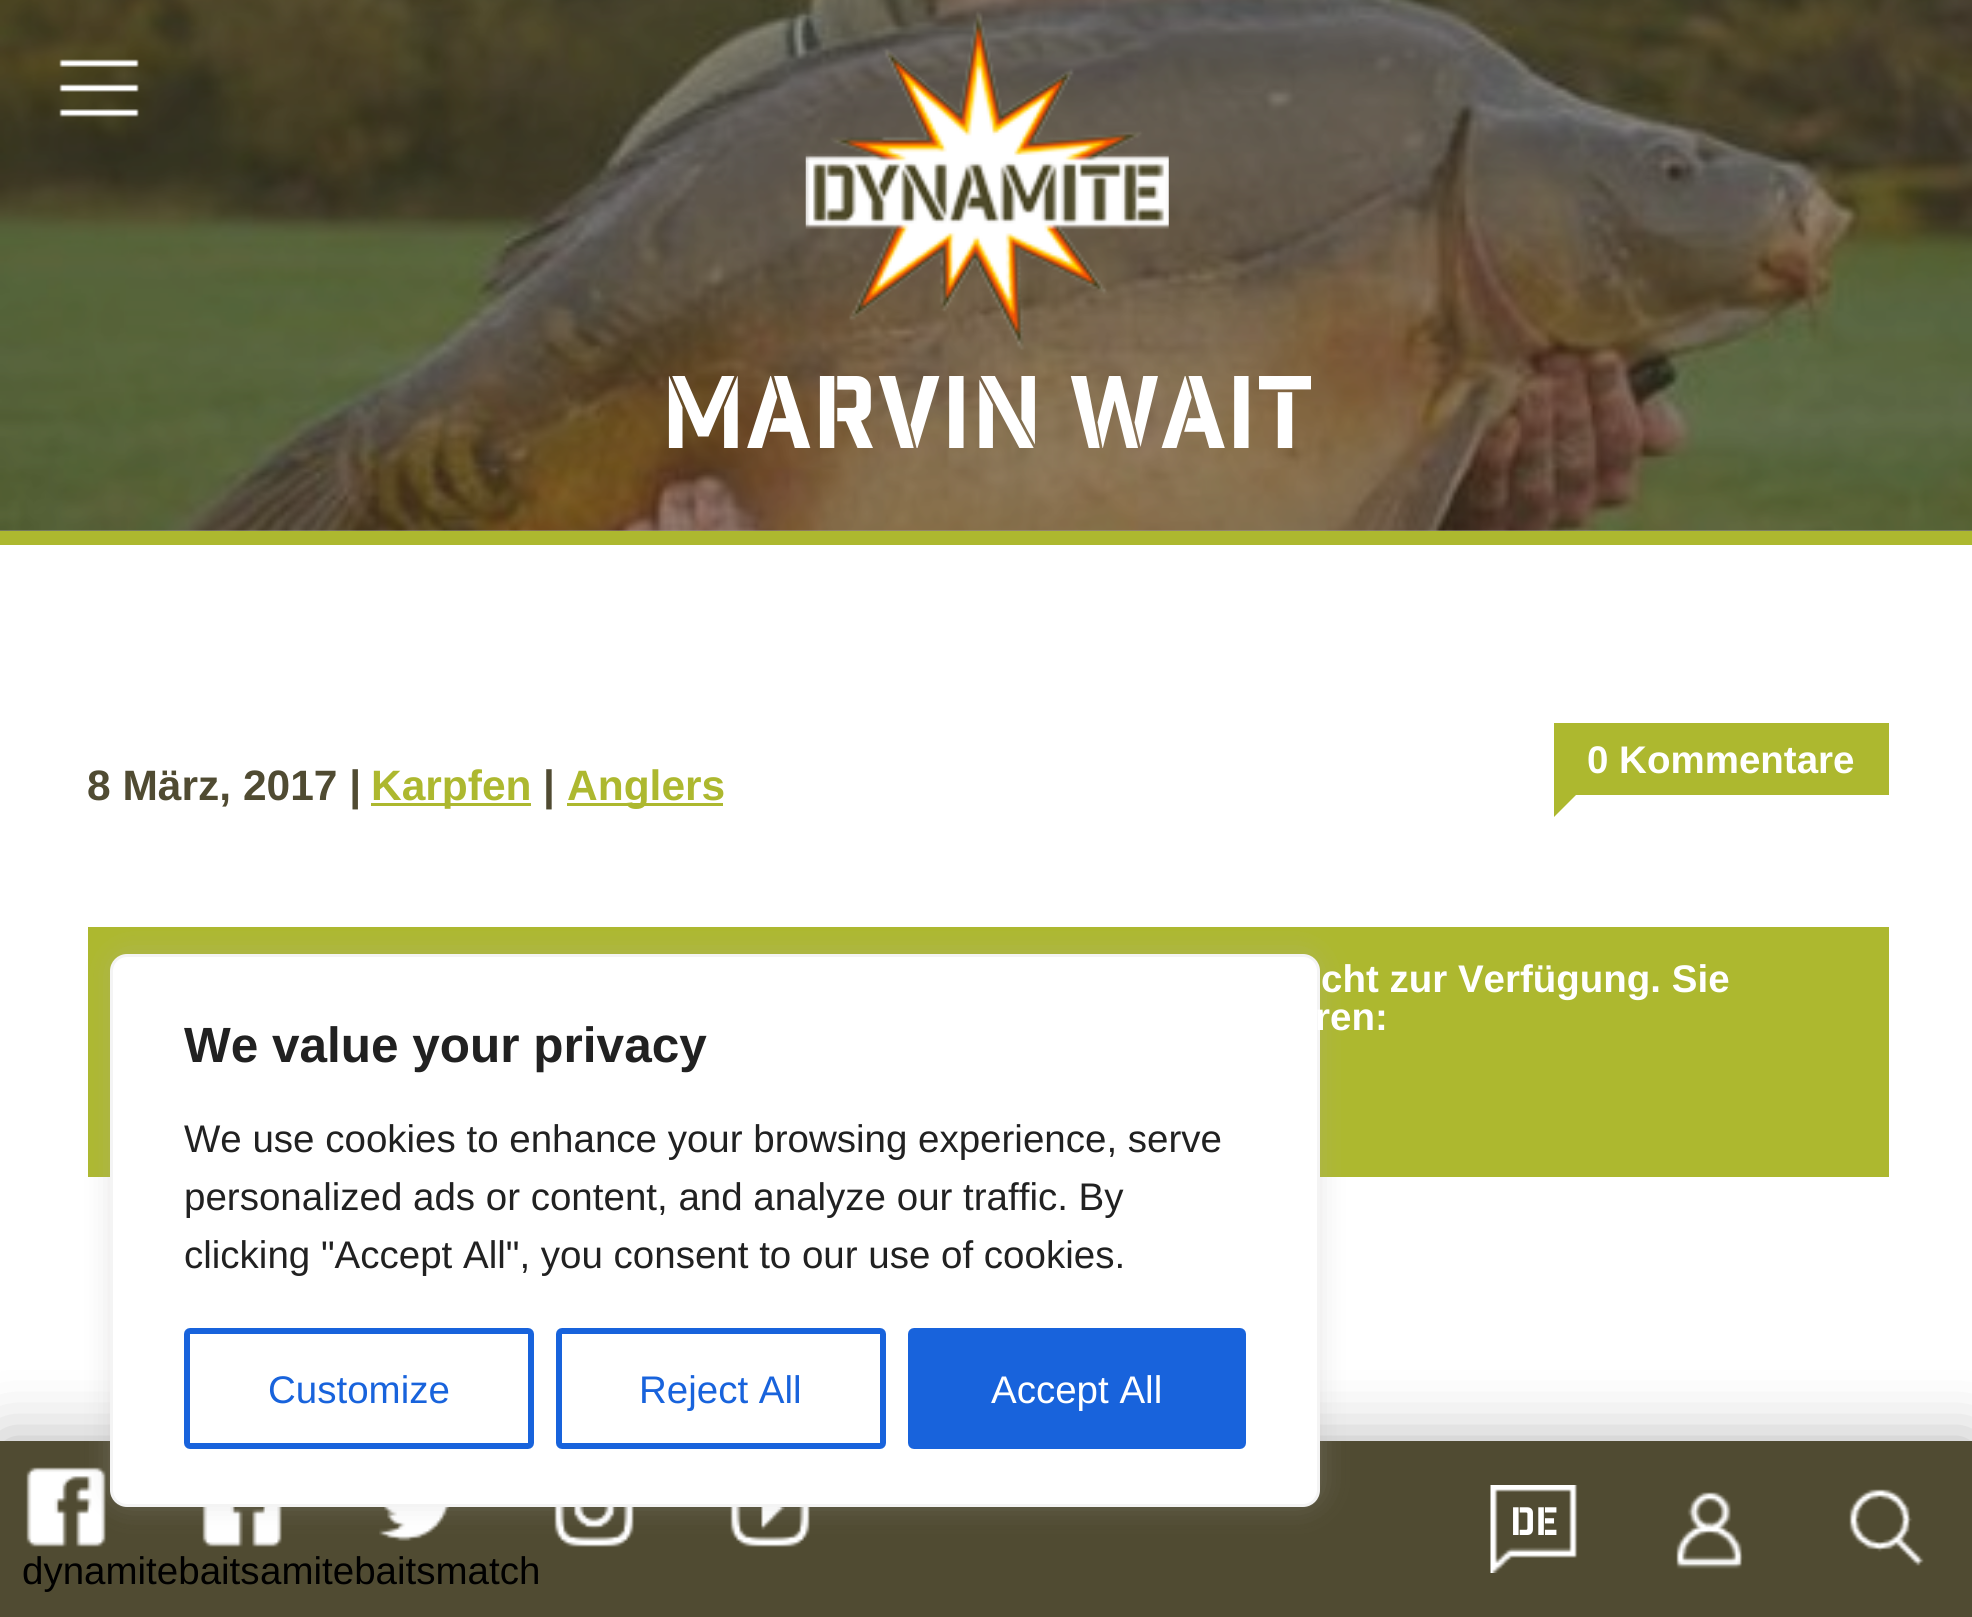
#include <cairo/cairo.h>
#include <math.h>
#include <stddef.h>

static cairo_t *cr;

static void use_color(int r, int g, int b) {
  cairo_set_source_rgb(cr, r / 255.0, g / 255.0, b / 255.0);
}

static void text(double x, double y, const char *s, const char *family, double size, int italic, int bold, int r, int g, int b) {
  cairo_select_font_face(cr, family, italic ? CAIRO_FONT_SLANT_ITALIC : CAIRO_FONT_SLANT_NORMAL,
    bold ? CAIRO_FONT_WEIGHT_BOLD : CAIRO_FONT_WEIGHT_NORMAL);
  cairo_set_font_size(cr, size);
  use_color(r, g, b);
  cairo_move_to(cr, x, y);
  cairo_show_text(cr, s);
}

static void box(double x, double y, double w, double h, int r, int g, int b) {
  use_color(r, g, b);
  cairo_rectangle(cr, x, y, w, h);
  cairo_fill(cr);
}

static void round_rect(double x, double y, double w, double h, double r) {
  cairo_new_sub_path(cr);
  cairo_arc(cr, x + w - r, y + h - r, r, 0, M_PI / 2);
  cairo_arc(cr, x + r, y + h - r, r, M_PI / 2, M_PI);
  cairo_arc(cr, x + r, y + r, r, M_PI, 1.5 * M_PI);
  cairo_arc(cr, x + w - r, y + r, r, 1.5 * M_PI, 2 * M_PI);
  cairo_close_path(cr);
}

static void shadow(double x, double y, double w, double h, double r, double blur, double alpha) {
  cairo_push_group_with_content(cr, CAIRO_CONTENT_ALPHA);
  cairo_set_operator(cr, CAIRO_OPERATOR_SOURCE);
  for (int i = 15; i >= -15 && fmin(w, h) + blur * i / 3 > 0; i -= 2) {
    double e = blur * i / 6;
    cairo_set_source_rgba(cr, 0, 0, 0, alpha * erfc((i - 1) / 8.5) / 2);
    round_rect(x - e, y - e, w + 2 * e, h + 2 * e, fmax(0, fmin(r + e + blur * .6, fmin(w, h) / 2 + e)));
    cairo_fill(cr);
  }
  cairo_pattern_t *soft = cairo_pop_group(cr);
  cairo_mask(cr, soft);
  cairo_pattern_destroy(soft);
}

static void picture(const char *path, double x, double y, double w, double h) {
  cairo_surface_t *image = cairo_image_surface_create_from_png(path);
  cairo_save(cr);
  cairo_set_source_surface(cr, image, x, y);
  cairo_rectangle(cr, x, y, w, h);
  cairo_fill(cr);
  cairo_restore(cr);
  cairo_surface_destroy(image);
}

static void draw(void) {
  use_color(255, 255, 255);
  cairo_paint(cr);
  box(0, 530, 1972, 1, 162, 160, 149);
  picture("img_03.png", 0, 0, 1972, 531);
  picture("img_01.png", 59, 59, 80, 58);
  picture("img_02.png", 805, 10, 364, 340);
  box(0, 531, 1972, 14, 173, 184, 47);
  box(1554, 723, 335, 72, 173, 184, 47);
  cairo_new_path(cr);
  cairo_move_to(cr, 1554, 817);
  cairo_line_to(cr, 1554, 773);
  cairo_line_to(cr, 1576, 795);
  cairo_close_path(cr);
  cairo_fill(cr);
  box(371, 803, 160, 3, 173, 184, 47);
  box(567, 803, 156, 3, 173, 184, 47);
  box(88, 927, 1801, 250, 173, 184, 47);
  use_color(0, 0, 0);
  shadow(0, 1441, 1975, 176, 0, 33, 0.3);
  box(0, 1441, 1972, 176, 80, 75, 50);
  picture("img_07.png", 379, 1507, 71, 34);
  picture("img_08.png", 554, 1507, 80, 40);
  picture("img_09.png", 730, 1507, 80, 40);
  picture("img_10.png", 26, 1467, 80, 80);
  picture("img_11.png", 202, 1507, 80, 40);
  use_color(172, 171, 171);
  shadow(110, 952, 1210, 552, 17, 14, 0.3);
  use_color(255, 255, 255);
  round_rect(111.5, 955.5, 1207, 550, 15.5);
  cairo_fill_preserve(cr);
  use_color(244, 244, 244);
  cairo_set_line_width(cr, 3);
  cairo_stroke(cr);
  round_rect(187, 1331, 344, 115, 3);
  use_color(24, 99, 220);
  cairo_set_line_width(cr, 6);
  cairo_stroke(cr);
  round_rect(559, 1331, 324, 115, 3);
  cairo_stroke(cr);
  round_rect(911, 1331, 332, 115, 3);
  cairo_fill_preserve(cr);
  cairo_stroke(cr);
  picture("img_04.png", 1490, 1485, 88, 88);
  picture("img_05.png", 1676, 1492, 68, 77);
  picture("img_06.png", 1849, 1489, 75, 77);
  text(661, 448, "Marvin Wait", "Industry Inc", 100, 0, 1, 255, 255, 255);
  text(1587, 773, "0 Kommentare", "Liberation Sans", 38.5, 0, 1, 255, 255, 255);
  text(87, 800, "8 März, 2017 |", "Liberation Sans", 42.5, 0, 1, 80, 75, 50);
  text(371, 800, "Karpfen", "Liberation Sans", 42.5, 0, 1, 173, 184, 47);
  text(543, 800, "|", "Liberation Sans", 42.5, 0, 1, 80, 75, 50);
  text(567, 800, "Anglers", "Liberation Sans", 42.5, 0, 1, 173, 184, 47);
  text(1321, 992, "cht zur Verfügung. Sie", "Liberation Sans", 38.5, 0, 1, 255, 255, 255);
  text(1315, 1030, "ren:", "Liberation Sans", 38.5, 0, 1, 255, 255, 255);
  text(184, 1062, "We value your privacy", "Liberation Sans", 49.5, 0, 1, 33, 33, 33);
  text(184, 1152, "We use cookies to enhance your browsing experience, serve", "Liberation Sans", 38.5, 0, 0, 33, 33, 33);
  text(184, 1210, "personalized ads or content, and analyze our traffic. By", "Liberation Sans", 38.5, 0, 0, 33, 33, 33);
  text(184, 1268, "clicking \"Accept All\", you consent to our use of cookies.", "Liberation Sans", 38.5, 0, 0, 33, 33, 33);
  text(268, 1403, "Customize", "Liberation Sans", 38.5, 0, 0, 24, 99, 220);
  text(639, 1403, "Reject All", "Liberation Sans", 38.5, 0, 0, 24, 99, 220);
  text(991, 1403, "Accept All", "Liberation Sans", 38.5, 0, 0, 255, 255, 255);
  text(1510, 1535, "DE", "Industry Inc", 38.5, 0, 1, 255, 255, 255);
  text(22, 1584, "dynamitebaits", "Liberation Sans", 38.5, 0, 0, 0, 0, 0);
  text(260, 1584, "amitebaitsmatch", "Liberation Sans", 38.5, 0, 0, 0, 0, 0);
}

int main(void) {
  cairo_surface_t *surface = cairo_image_surface_create(CAIRO_FORMAT_RGB24, 1972, 1617);
  cr = cairo_create(surface);
  cairo_font_options_t *options = cairo_font_options_create();
  cairo_font_options_set_hint_metrics(options, CAIRO_HINT_METRICS_OFF);
  cairo_font_options_set_hint_style(options, CAIRO_HINT_STYLE_NONE);
  cairo_set_font_options(cr, options);
  cairo_set_miter_limit(cr, 4);
  draw();
  cairo_surface_write_to_png(surface, "out.png");
  cairo_font_options_destroy(options);
  cairo_destroy(cr);
  cairo_surface_destroy(surface);
  return 0;
}
